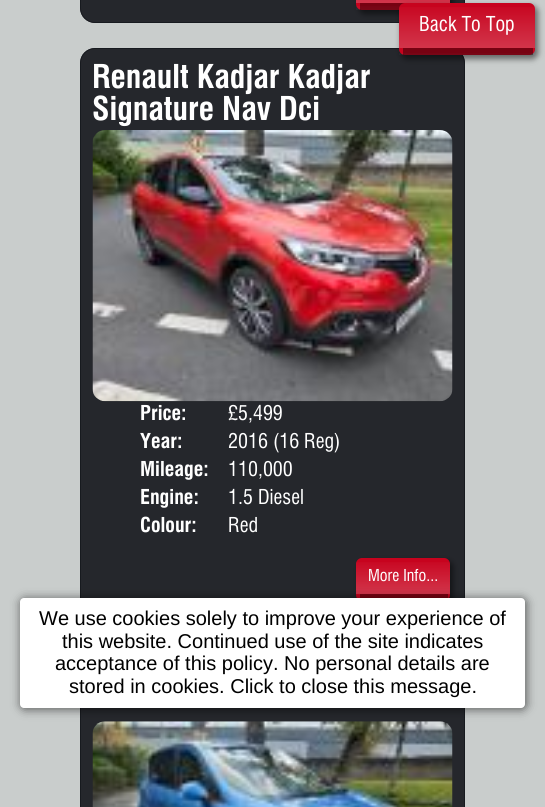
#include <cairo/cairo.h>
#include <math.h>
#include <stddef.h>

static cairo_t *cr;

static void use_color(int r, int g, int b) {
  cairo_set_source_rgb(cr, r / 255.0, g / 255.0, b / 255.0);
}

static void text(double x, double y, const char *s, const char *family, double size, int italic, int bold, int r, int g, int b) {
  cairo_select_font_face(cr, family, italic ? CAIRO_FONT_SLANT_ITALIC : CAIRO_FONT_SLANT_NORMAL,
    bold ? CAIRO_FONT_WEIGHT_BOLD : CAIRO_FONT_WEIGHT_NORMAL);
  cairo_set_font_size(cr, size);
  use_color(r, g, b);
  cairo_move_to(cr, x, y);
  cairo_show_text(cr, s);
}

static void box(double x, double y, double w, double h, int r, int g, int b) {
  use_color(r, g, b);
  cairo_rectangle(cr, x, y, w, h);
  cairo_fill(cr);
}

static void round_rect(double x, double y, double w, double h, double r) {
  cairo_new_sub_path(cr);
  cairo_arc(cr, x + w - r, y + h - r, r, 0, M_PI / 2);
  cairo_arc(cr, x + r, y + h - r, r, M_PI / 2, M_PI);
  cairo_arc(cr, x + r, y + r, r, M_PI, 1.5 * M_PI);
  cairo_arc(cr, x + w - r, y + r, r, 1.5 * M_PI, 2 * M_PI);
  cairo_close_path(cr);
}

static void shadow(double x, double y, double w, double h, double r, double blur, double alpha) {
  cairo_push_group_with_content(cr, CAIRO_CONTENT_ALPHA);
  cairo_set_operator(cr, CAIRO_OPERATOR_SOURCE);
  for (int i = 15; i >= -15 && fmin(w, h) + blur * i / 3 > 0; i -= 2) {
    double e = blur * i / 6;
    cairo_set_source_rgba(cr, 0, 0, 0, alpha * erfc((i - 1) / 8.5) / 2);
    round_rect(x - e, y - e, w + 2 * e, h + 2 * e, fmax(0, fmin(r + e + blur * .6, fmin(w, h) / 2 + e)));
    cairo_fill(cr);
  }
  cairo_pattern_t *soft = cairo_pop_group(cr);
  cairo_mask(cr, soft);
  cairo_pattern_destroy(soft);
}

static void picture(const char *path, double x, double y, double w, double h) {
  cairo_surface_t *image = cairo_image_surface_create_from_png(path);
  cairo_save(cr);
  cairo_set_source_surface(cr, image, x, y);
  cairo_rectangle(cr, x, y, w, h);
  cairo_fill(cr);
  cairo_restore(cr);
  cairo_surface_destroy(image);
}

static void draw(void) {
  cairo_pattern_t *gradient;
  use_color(201, 205, 204);
  cairo_paint(cr);
  use_color(37, 39, 44);
  round_rect(80, -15, 385, 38, 15);
  cairo_fill(cr);
  round_rect(80.5, -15.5, 384, 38, 14.5);
  cairo_set_source_rgba(cr, 0.082, 0.09, 0.11, 0.8);
  cairo_set_line_width(cr, 1);
  cairo_stroke(cr);
  use_color(0, 0, 0);
  shadow(359, -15, 94, 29, 6, 3, 0.5);
  use_color(199, 3, 30);
  round_rect(356, -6, 94, 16, 6);
  cairo_fill(cr);
  gradient = cairo_pattern_create_linear(403, 2.5, 403, -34);
  cairo_pattern_add_color_stop_rgba(gradient, 0, 0.824, 0.208, 0.294, 1);
  cairo_pattern_add_color_stop_rgba(gradient, 1, 0.78, 0.012, 0.118, 1);
  cairo_set_source(cr, gradient);
  cairo_pattern_destroy(gradient);
  cairo_rectangle(cr, 356, 0, 94, 3);
  cairo_fill(cr);
  gradient = cairo_pattern_create_linear(403, 39, 403, 2.5);
  cairo_pattern_add_color_stop_rgba(gradient, 0, 1, 1, 1, 0.2);
  cairo_pattern_add_color_stop_rgba(gradient, 1, 1, 1, 1, 0);
  cairo_set_source(cr, gradient);
  cairo_pattern_destroy(gradient);
  cairo_rectangle(cr, 356, 6, 44, 4);
  cairo_fill(cr);
  cairo_set_source_rgba(cr, 0, 0, 0, 0.4);
  cairo_rectangle(cr, 360, 3, 45, 7);
  cairo_fill(cr);
  use_color(37, 39, 44);
  round_rect(80, 48, 385, 566, 15);
  cairo_fill(cr);
  round_rect(80.5, 48.5, 384, 565, 14.5);
  cairo_set_source_rgba(cr, 0.082, 0.09, 0.11, 0.8);
  cairo_stroke(cr);
  use_color(0, 0, 0);
  shadow(401, 6, 137, 53, 6, 3, 0.5);
  use_color(199, 3, 30);
  round_rect(399, 3, 136, 52, 6);
  cairo_fill(cr);
  gradient = cairo_pattern_create_linear(467, 48, 467, 2.5);
  cairo_pattern_add_color_stop_rgba(gradient, 0, 1, 1, 1, 0.2);
  cairo_pattern_add_color_stop_rgba(gradient, 1, 1, 1, 1, 0);
  cairo_set_source(cr, gradient);
  cairo_pattern_destroy(gradient);
  cairo_rectangle(cr, 399, 7, 136, 41);
  cairo_fill(cr);
  gradient = cairo_pattern_create_linear(467, 93, 467, 48);
  cairo_pattern_add_color_stop_rgba(gradient, 0, 1, 1, 1, 0.2);
  cairo_pattern_add_color_stop_rgba(gradient, 1, 1, 1, 1, 0);
  cairo_set_source(cr, gradient);
  cairo_pattern_destroy(gradient);
  cairo_rectangle(cr, 399, 53, 136, 2);
  cairo_fill(cr);
  cairo_set_source_rgba(cr, 0, 0, 0, 0.4);
  cairo_rectangle(cr, 403, 48, 130, 7);
  cairo_fill(cr);
  picture("img_01.png", 92, 130, 361, 272);
  use_color(0, 0, 0);
  shadow(359, 561, 94, 44, 6, 3, 0.5);
  use_color(199, 3, 30);
  round_rect(356, 558, 94, 43, 6);
  cairo_fill(cr);
  gradient = cairo_pattern_create_linear(403, 594, 403, 558);
  cairo_pattern_add_color_stop_rgba(gradient, 0, 1, 1, 1, 0.2);
  cairo_pattern_add_color_stop_rgba(gradient, 1, 1, 1, 1, 0);
  cairo_set_source(cr, gradient);
  cairo_pattern_destroy(gradient);
  cairo_rectangle(cr, 356, 562, 94, 32);
  cairo_fill(cr);
  cairo_set_source_rgba(cr, 0, 0, 0, 0.4);
  cairo_rectangle(cr, 360, 594, 88, 4);
  cairo_fill(cr);
  box(80, 708, 385, 99, 37, 39, 44);
  cairo_rectangle(cr, 80.5, 639.5, 384, 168);
  cairo_set_source_rgba(cr, 0.082, 0.09, 0.11, 0.8);
  cairo_stroke(cr);
  picture("img_02.png", 92, 721, 361, 86);
  use_color(0, 0, 0);
  shadow(21, 599, 505, 110, 4, 5, 0.6);
  use_color(255, 255, 255);
  round_rect(20, 598, 505, 110, 4);
  cairo_fill(cr);
  text(419, 31, "Back To Top", "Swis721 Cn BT", 20, 0, 0, 255, 255, 255);
  text(92, 88, "Renault Kadjar Kadjar", "Swis721 Cn BT", 32, 0, 1, 255, 255, 255);
  text(92, 120, "Signature Nav Dci", "Swis721 Cn BT", 32, 0, 1, 255, 255, 255);
  text(140, 420, "Price:", "Swis721 Cn BT", 20, 0, 1, 255, 255, 255);
  text(228, 420, "£5,499", "Swis721 Cn BT", 20, 0, 0, 255, 255, 255);
  text(140, 448, "Year:", "Swis721 Cn BT", 20, 0, 1, 255, 255, 255);
  text(228, 448, "2016 (16 Reg)", "Swis721 Cn BT", 20, 0, 0, 255, 255, 255);
  text(140, 476, "Mileage:", "Swis721 Cn BT", 20, 0, 1, 255, 255, 255);
  text(228, 476, "110,000", "Swis721 Cn BT", 20, 0, 0, 255, 255, 255);
  text(140, 504, "Engine:", "Swis721 Cn BT", 20, 0, 1, 255, 255, 255);
  text(228, 504, "1.5 Diesel", "Swis721 Cn BT", 20, 0, 0, 255, 255, 255);
  text(140, 532, "Colour:", "Swis721 Cn BT", 20, 0, 1, 255, 255, 255);
  text(228, 532, "Red", "Swis721 Cn BT", 20, 0, 0, 255, 255, 255);
  text(368, 581, "More Info...", "Swis721 Cn BT", 16, 0, 0, 255, 255, 255);
  text(39, 625, "We use cookies solely to improve your experience of", "Liberation Sans", 20, 0, 0, 0, 0, 0);
  text(62, 648, "this website. Continued use of the site indicates", "Liberation Sans", 20, 0, 0, 0, 0, 0);
  text(55, 670, "acceptance of this policy. No personal details are", "Liberation Sans", 20, 0, 0, 0, 0, 0);
  text(69, 693, "stored in cookies. Click to close this message.", "Liberation Sans", 20, 0, 0, 0, 0, 0);
}

int main(void) {
  cairo_surface_t *surface = cairo_image_surface_create(CAIRO_FORMAT_RGB24, 545, 807);
  cr = cairo_create(surface);
  cairo_font_options_t *options = cairo_font_options_create();
  cairo_font_options_set_hint_metrics(options, CAIRO_HINT_METRICS_OFF);
  cairo_font_options_set_hint_style(options, CAIRO_HINT_STYLE_NONE);
  cairo_set_font_options(cr, options);
  cairo_set_miter_limit(cr, 4);
  draw();
  cairo_surface_write_to_png(surface, "out.png");
  cairo_font_options_destroy(options);
  cairo_destroy(cr);
  cairo_surface_destroy(surface);
  return 0;
}
